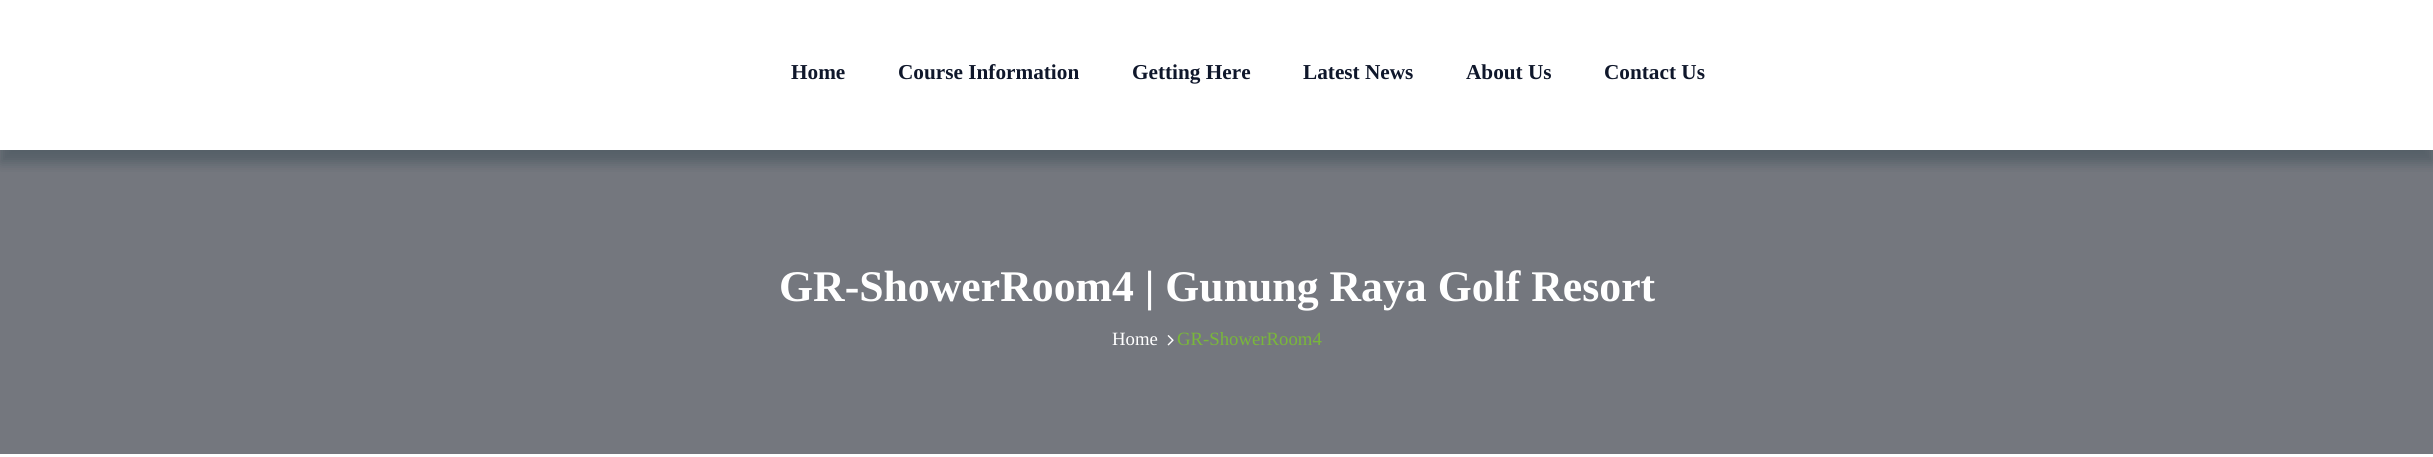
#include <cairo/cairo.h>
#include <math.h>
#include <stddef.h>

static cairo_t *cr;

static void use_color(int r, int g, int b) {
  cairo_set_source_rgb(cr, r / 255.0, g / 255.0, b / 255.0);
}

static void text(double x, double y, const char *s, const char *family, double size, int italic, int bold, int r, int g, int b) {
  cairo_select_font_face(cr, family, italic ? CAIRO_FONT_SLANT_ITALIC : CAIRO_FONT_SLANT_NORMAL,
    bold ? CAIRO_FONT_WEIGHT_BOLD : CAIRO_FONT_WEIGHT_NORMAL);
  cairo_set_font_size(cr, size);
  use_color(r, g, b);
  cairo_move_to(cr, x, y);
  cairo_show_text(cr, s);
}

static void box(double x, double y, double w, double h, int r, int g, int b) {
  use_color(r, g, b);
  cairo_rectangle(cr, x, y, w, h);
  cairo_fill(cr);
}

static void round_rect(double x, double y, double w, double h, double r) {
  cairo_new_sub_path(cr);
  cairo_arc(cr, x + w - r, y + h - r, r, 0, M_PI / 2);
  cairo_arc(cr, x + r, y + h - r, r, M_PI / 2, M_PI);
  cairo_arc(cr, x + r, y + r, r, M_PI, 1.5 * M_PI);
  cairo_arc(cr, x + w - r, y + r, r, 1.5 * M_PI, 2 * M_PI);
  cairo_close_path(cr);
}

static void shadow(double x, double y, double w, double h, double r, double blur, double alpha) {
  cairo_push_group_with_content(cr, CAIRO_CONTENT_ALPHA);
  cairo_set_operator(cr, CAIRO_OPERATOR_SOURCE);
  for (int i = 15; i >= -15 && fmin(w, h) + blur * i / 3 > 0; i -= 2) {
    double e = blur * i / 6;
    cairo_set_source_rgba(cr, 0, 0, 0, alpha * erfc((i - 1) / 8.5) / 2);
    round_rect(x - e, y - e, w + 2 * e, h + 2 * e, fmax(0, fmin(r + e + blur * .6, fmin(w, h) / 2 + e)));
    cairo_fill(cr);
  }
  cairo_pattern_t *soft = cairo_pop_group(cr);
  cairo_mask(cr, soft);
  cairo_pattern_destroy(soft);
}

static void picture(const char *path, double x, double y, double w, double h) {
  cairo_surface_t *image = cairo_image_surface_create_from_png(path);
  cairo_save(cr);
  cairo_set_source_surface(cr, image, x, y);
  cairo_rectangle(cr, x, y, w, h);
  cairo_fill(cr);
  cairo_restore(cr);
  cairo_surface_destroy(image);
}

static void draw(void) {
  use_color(255, 255, 255);
  cairo_paint(cr);
  box(0, 150, 2433, 304, 116, 119, 126);
  cairo_save(cr);
  cairo_rectangle(cr, 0, 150, 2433, 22);
  cairo_clip(cr);
  use_color(13, 41, 51);
  shadow(0, 13, 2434, 150, 0, 6, 0.3);
  cairo_restore(cr);
  picture("img_01.png", 1167, 335, 7, 11);
  text(791, 79, "Home", "Liberation Serif", 21.25, 0, 1, 15, 23, 43);
  text(898, 79, "Course Information", "Liberation Serif", 21.25, 0, 1, 15, 23, 43);
  text(1132, 79, "Getting Here", "Liberation Serif", 21.25, 0, 1, 15, 23, 43);
  text(1303, 79, "Latest News", "Liberation Serif", 21.25, 0, 1, 15, 23, 43);
  text(1466, 79, "About Us", "Liberation Serif", 21.25, 0, 1, 15, 23, 43);
  text(1604, 79, "Contact Us", "Liberation Serif", 21.25, 0, 1, 15, 23, 43);
  text(779, 301, "GR-ShowerRoom4 | Gunung Raya Golf Resort", "Liberation Serif", 43.75, 0, 1, 255, 255, 255);
  text(1112, 345, "Home", "Liberation Serif", 18.75, 0, 0, 255, 255, 255);
  text(1177, 345, "GR-ShowerRoom4", "Liberation Serif", 18.75, 0, 0, 121, 183, 58);
}

int main(void) {
  cairo_surface_t *surface = cairo_image_surface_create(CAIRO_FORMAT_RGB24, 2433, 457);
  cr = cairo_create(surface);
  cairo_font_options_t *options = cairo_font_options_create();
  cairo_font_options_set_hint_metrics(options, CAIRO_HINT_METRICS_OFF);
  cairo_font_options_set_hint_style(options, CAIRO_HINT_STYLE_NONE);
  cairo_set_font_options(cr, options);
  cairo_set_miter_limit(cr, 4);
  draw();
  cairo_surface_write_to_png(surface, "out.png");
  cairo_font_options_destroy(options);
  cairo_destroy(cr);
  cairo_surface_destroy(surface);
  return 0;
}
